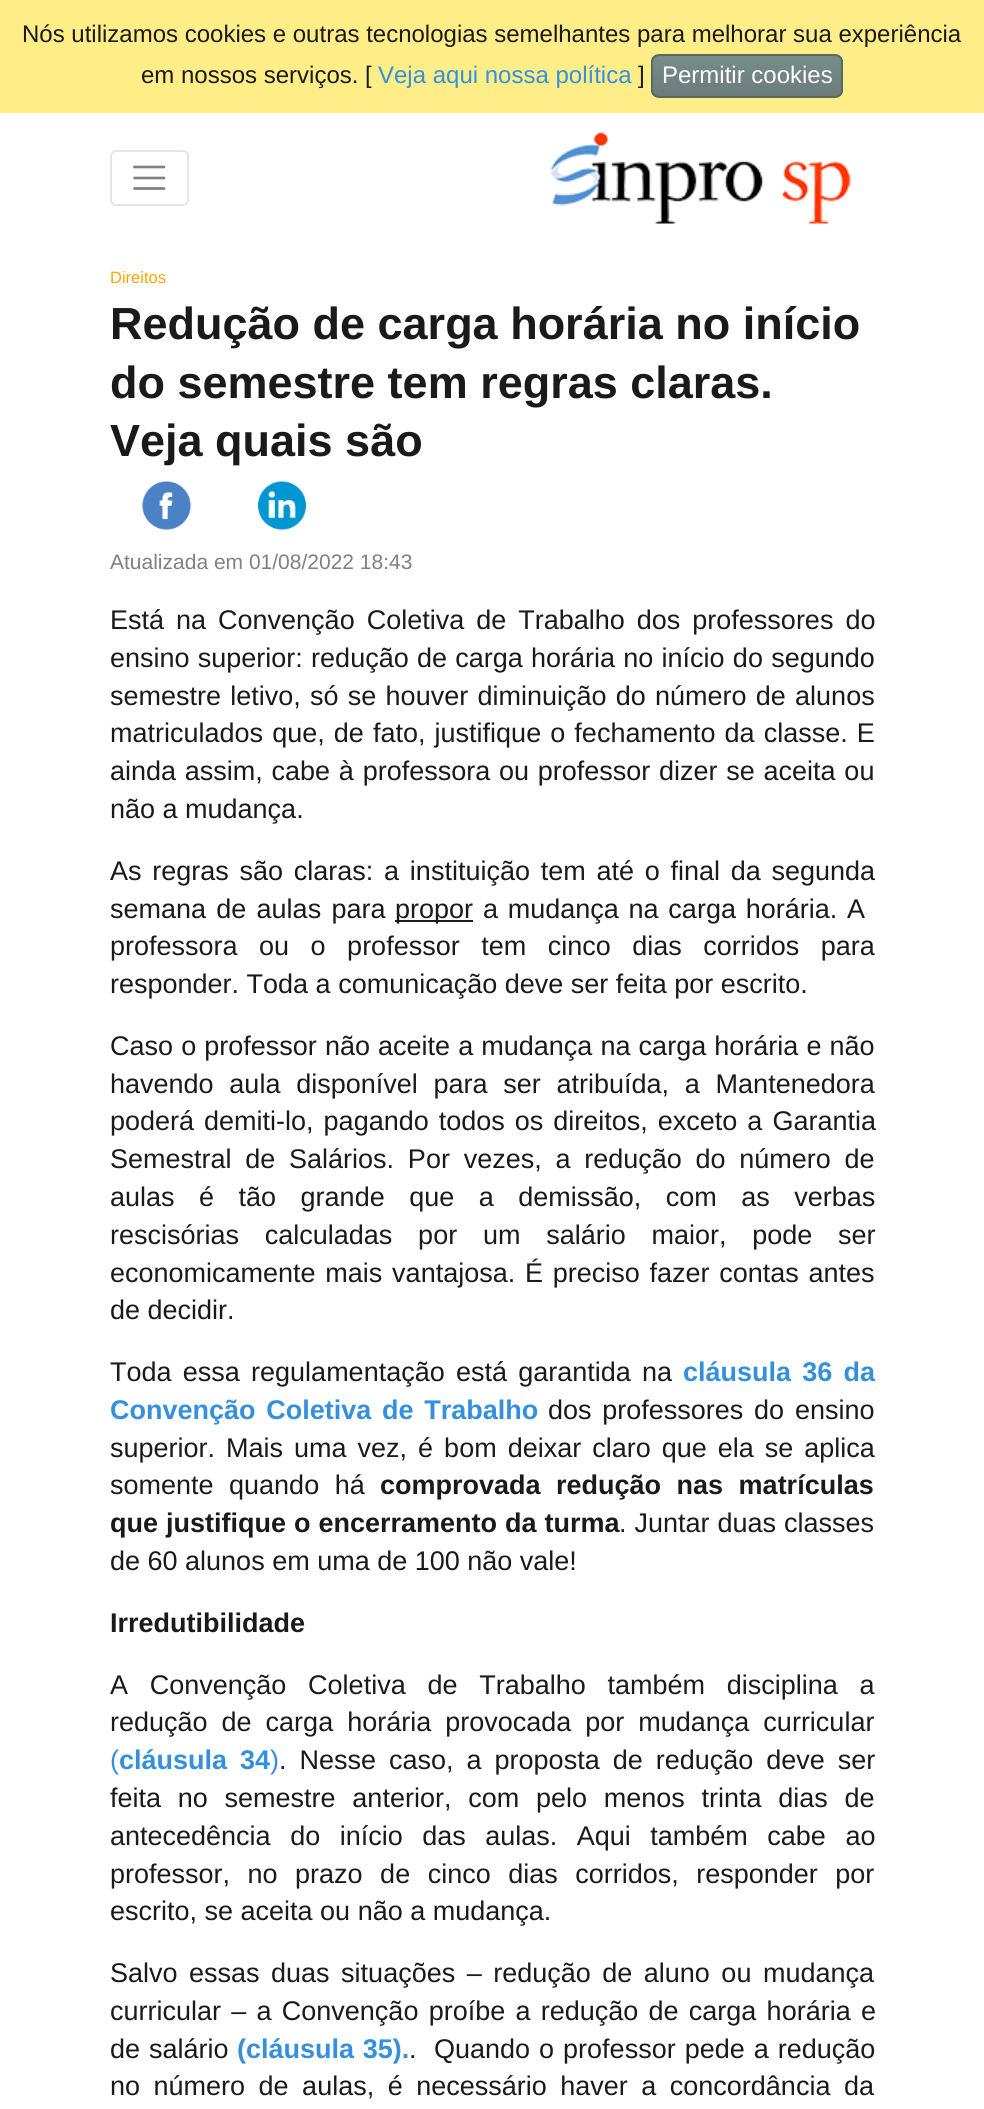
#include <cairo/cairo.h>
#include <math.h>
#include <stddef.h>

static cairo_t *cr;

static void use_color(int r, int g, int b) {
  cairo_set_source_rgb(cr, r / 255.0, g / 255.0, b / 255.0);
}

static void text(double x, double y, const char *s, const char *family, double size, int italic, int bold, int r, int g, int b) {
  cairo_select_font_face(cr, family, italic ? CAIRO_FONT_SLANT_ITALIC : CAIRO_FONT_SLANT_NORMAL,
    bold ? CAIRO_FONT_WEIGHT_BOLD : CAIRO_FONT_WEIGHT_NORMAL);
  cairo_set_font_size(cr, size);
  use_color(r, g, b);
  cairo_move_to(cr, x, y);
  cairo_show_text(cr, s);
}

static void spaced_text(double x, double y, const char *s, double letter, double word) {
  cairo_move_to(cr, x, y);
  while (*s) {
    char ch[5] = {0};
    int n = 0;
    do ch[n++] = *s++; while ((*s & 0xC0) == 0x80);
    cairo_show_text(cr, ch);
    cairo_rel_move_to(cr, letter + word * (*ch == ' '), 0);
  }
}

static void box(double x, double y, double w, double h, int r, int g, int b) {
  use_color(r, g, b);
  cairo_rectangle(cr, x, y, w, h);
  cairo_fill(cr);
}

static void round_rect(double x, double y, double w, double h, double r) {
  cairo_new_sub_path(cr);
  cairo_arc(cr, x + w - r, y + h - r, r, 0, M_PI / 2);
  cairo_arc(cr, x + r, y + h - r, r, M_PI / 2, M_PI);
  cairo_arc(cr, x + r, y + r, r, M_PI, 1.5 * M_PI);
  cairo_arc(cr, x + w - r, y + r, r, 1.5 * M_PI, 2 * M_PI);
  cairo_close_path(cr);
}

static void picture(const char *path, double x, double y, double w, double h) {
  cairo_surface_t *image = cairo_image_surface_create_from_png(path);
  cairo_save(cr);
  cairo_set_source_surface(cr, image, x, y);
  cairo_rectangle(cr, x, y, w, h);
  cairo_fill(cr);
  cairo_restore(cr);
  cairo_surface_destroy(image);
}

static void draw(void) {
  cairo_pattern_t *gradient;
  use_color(255, 255, 255);
  cairo_paint(cr);
  box(0, 0, 984, 113, 255, 238, 136);
  cairo_save(cr);
  round_rect(651, 54, 192, 44, 8);
  cairo_clip(cr);
  gradient = cairo_pattern_create_linear(747, 55, 747, 96);
  cairo_pattern_add_color_stop_rgba(gradient, 0.05, 0.463, 0.553, 0.529, 1);
  cairo_pattern_add_color_stop_rgba(gradient, 1, 0.424, 0.486, 0.486, 1);
  cairo_set_source(cr, gradient);
  cairo_pattern_destroy(gradient);
  cairo_rectangle(cr, 651, 56, 192, 40);
  cairo_fill(cr);
  cairo_restore(cr);
  round_rect(652, 55, 190, 42, 7);
  use_color(86, 105, 99);
  cairo_stroke(cr);
  round_rect(111, 151, 77, 54, 5);
  use_color(230, 230, 230);
  cairo_stroke(cr);
  cairo_new_path(cr);
  cairo_move_to(cr, 134.5, 167);
  cairo_line_to(cr, 164, 167);
  cairo_move_to(cr, 134.5, 178);
  cairo_line_to(cr, 164, 178);
  cairo_move_to(cr, 134.5, 188.5);
  cairo_line_to(cr, 164, 188.5);
  use_color(128, 128, 128);
  cairo_set_line_width(cr, 2.7);
  cairo_set_line_cap(cr, CAIRO_LINE_CAP_ROUND);
  cairo_stroke(cr);
  picture("img_01.png", 550, 132, 301, 92);
  picture("img_02.png", 142, 481, 49, 49);
  picture("img_03.png", 258, 481, 48, 49);
  box(395, 920, 78, 2, 26, 26, 26);
  text(22, 42, "Nós utilizamos cookies e outras tecnologias semelhantes para melhorar sua experiência", "Liberation Sans", 24, 0, 0, 26, 26, 26);
  text(141, 83, "em nossos serviços. [", "Liberation Sans", 24, 0, 0, 26, 26, 26);
  text(378, 83, "Veja aqui nossa política", "Liberation Sans", 24, 0, 0, 52, 144, 220);
  text(638, 83, "]", "Liberation Sans", 24, 0, 0, 26, 26, 26);
  text(662, 83, "Permitir cookies", "Liberation Sans", 24, 0, 0, 255, 255, 255);
  text(110, 283, "Direitos", "Liberation Sans", 16.5, 0, 0, 255, 165, 0);
  text(110, 339, "Redução de carga horária no início", "Liberation Sans", 45, 0, 1, 26, 26, 26);
  text(110, 398, "do semestre tem regras claras.", "Liberation Sans", 45, 0, 1, 26, 26, 26);
  text(110, 456, "Veja quais são", "Liberation Sans", 45, 0, 1, 26, 26, 26);
  text(110, 569, "Atualizada em 01/08/2022 18:43", "Liberation Sans", 21, 0, 0, 128, 128, 128);
  cairo_set_font_size(cr, 27);
  use_color(26, 26, 26);
  spaced_text(110, 629, "Está na Convenção Coletiva de Trabalho dos professores do", 0, 4.5);
  spaced_text(110, 667, "ensino superior: redução de carga horária no início do segundo", 0, 0.75);
  spaced_text(110, 705, "semestre letivo, só se houver diminuição do número de alunos", 0, 1.75);
  spaced_text(110, 742, "matriculados que, de fato, justifique o fechamento da classe. E", 0, 1.6);
  spaced_text(110, 780, "ainda assim, cabe à professora ou professor dizer se aceita ou", 0, 1.25);
  text(110, 818, "não a mudança.", "Liberation Sans", 27, 0, 0, 26, 26, 26);
  spaced_text(110, 880, "As regras são claras: a instituição tem até o final da segunda", 0, 3.25);
  spaced_text(110, 918, "semana de aulas para", 0, 2.75);
  text(395, 918, "propor", "Liberation Sans", 27, 0, 0, 26, 26, 26);
  spaced_text(483, 918, "a mudança na carga horária. A", 0, 2.25);
  spaced_text(110, 955, "professora ou o professor tem cinco dias corridos para", 0, 14);
  text(110, 993, "responder. Toda a comunicação deve ser feita por escrito.", "Liberation Sans", 27, 0, 0, 26, 26, 26);
  spaced_text(110, 1055, "Caso o professor não aceite a mudança na carga horária e não", 0, 0.6);
  spaced_text(110, 1093, "havendo aula disponível para ser atribuída, a Mantenedora", 0, 8.25);
  spaced_text(110, 1130, "poderá demiti-lo, pagando todos os direitos, exceto a Garantia", 0, 2.5);
  spaced_text(110, 1168, "Semestral de Salários. Por vezes, a redução do número de", 0, 6.25);
  spaced_text(110, 1206, "aulas é tão grande que a demissão, com as verbas", 0, 17);
  spaced_text(110, 1244, "rescisórias calculadas por um salário maior, pode ser", 0, 18.25);
  spaced_text(110, 1282, "economicamente mais vantajosa. É preciso fazer contas antes", 0, 2.25);
  text(110, 1319, "de decidir.", "Liberation Sans", 27, 0, 0, 26, 26, 26);
  spaced_text(110, 1381, "Toda essa regulamentação está garantida na", 0, 3.75);
  cairo_select_font_face(cr, "Liberation Sans", CAIRO_FONT_SLANT_NORMAL, CAIRO_FONT_WEIGHT_BOLD);
  use_color(52, 144, 220);
  spaced_text(683, 1381, "cláusula 36 da", 0, 3.75);
  spaced_text(110, 1419, "Convenção Coletiva de Trabalho", 0, 3.25);
  cairo_select_font_face(cr, "Liberation Sans", CAIRO_FONT_SLANT_NORMAL, CAIRO_FONT_WEIGHT_NORMAL);
  use_color(26, 26, 26);
  spaced_text(548, 1419, "dos professores do ensino", 0, 3.25);
  spaced_text(110, 1457, "superior. Mais uma vez, é bom deixar claro que ela se aplica", 0, 3.5);
  spaced_text(110, 1494, "somente quando há", 0, 8);
  cairo_select_font_face(cr, "Liberation Sans", CAIRO_FONT_SLANT_NORMAL, CAIRO_FONT_WEIGHT_BOLD);
  spaced_text(380, 1494, "comprovada redução nas matrículas", 0, 8);
  spaced_text(110, 1532, "que justifique o encerramento da turma", 0, 0.5);
  cairo_select_font_face(cr, "Liberation Sans", CAIRO_FONT_SLANT_NORMAL, CAIRO_FONT_WEIGHT_NORMAL);
  spaced_text(619, 1532, ". Juntar duas classes", 0, 0.5);
  text(110, 1570, "de 60 alunos em uma de 100 não vale!", "Liberation Sans", 27, 0, 0, 26, 26, 26);
  text(110, 1632, "Irredutibilidade", "Liberation Sans", 27, 0, 1, 26, 26, 26);
  cairo_select_font_face(cr, "Liberation Sans", CAIRO_FONT_SLANT_NORMAL, CAIRO_FONT_WEIGHT_NORMAL);
  spaced_text(110, 1694, "A Convenção Coletiva de Trabalho também disciplina a", 0, 14.25);
  spaced_text(110, 1731, "redução de carga horária provocada por mudança curricular", 0, 6.5);
  text(110, 1769, "(", "Liberation Sans", 27, 0, 0, 52, 144, 220);
  cairo_select_font_face(cr, "Liberation Sans", CAIRO_FONT_SLANT_NORMAL, CAIRO_FONT_WEIGHT_BOLD);
  spaced_text(119, 1769, "cláusula 34", 0, 5.5);
  text(270, 1769, ")", "Liberation Sans", 27, 0, 0, 52, 144, 220);
  use_color(26, 26, 26);
  spaced_text(279, 1769, ". Nesse caso, a proposta de redução deve ser", 0, 5.5);
  spaced_text(110, 1807, "feita no semestre anterior, com pelo menos trinta dias de", 0, 9.25);
  spaced_text(110, 1845, "antecedência do início das aulas. Aqui também cabe ao", 0, 12);
  spaced_text(110, 1883, "professor, no prazo de cinco dias corridos, responder por", 0, 10);
  text(110, 1920, "escrito, se aceita ou não a mudança.", "Liberation Sans", 27, 0, 0, 26, 26, 26);
  spaced_text(110, 1982, "Salvo essas duas situações – redução de aluno ou mudança", 0, 4);
  spaced_text(110, 2020, "curricular – a Convenção proíbe a redução de carga horária e", 0, 2.75);
  spaced_text(110, 2058, "de salário", 0, 1.5);
  cairo_select_font_face(cr, "Liberation Sans", CAIRO_FONT_SLANT_NORMAL, CAIRO_FONT_WEIGHT_BOLD);
  use_color(52, 144, 220);
  spaced_text(237, 2058, "(cláusula 35).", 0, 1.25);
  text(409, 2058, ".", "Liberation Sans", 27, 0, 0, 26, 26, 26);
  spaced_text(434, 2058, "Quando o professor pede a redução", 0, 1.5);
  spaced_text(110, 2095, "no número de aulas, é necessário haver a concordância da", 0, 6);
}

int main(void) {
  cairo_surface_t *surface = cairo_image_surface_create(CAIRO_FORMAT_RGB24, 984, 2109);
  cr = cairo_create(surface);
  cairo_font_options_t *options = cairo_font_options_create();
  cairo_font_options_set_hint_metrics(options, CAIRO_HINT_METRICS_OFF);
  cairo_font_options_set_hint_style(options, CAIRO_HINT_STYLE_NONE);
  cairo_set_font_options(cr, options);
  cairo_set_miter_limit(cr, 4);
  draw();
  cairo_surface_write_to_png(surface, "out.png");
  cairo_font_options_destroy(options);
  cairo_destroy(cr);
  cairo_surface_destroy(surface);
  return 0;
}
